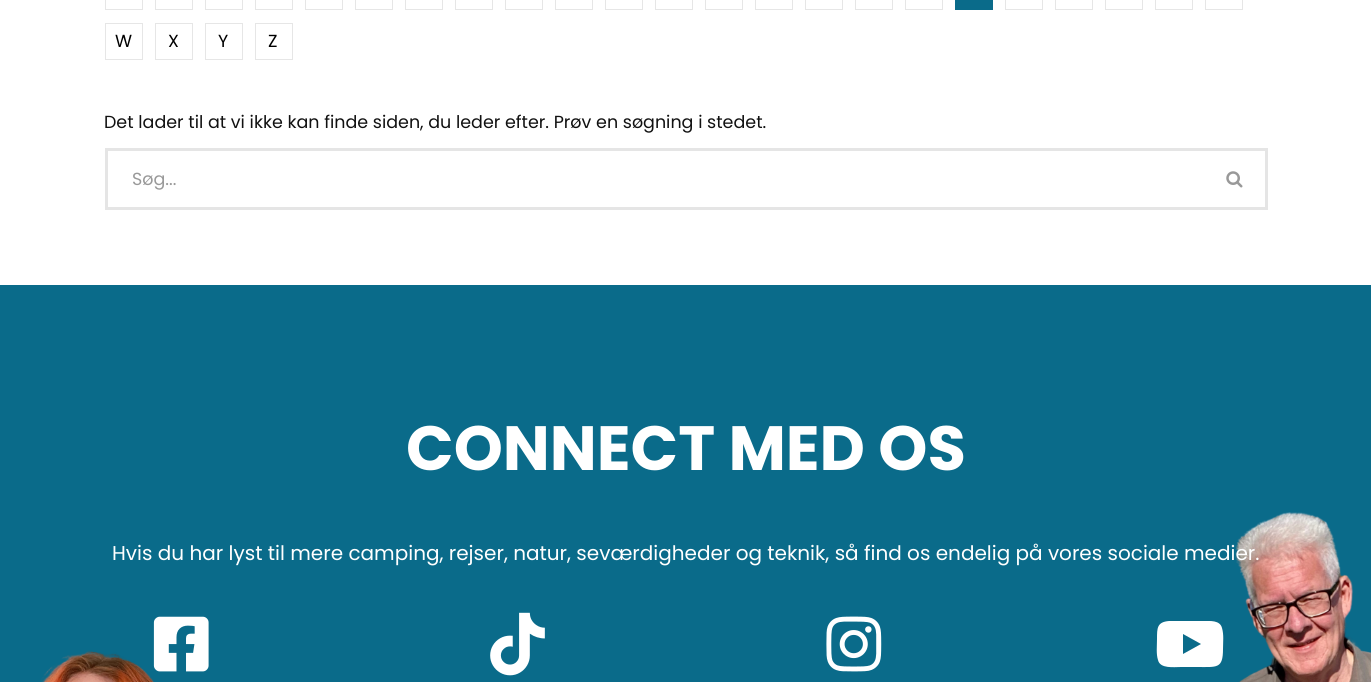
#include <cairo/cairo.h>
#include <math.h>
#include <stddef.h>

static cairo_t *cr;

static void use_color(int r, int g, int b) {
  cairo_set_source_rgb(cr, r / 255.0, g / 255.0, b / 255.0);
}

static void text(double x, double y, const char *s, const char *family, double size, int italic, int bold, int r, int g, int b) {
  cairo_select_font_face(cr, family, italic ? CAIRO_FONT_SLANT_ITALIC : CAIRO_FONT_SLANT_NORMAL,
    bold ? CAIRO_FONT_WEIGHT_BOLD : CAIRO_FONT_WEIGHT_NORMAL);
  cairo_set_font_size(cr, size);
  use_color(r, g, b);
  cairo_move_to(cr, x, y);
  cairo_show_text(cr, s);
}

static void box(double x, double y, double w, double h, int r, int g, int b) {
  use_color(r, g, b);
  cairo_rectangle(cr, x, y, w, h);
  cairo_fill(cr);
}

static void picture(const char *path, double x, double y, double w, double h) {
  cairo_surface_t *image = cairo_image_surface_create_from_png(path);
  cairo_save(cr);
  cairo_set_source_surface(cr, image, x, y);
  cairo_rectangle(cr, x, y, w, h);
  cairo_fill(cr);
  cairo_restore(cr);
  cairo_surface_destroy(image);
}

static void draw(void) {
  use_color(255, 255, 255);
  cairo_paint(cr);
  cairo_rectangle(cr, 105.5, -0.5, 37, 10);
  use_color(230, 230, 230);
  cairo_set_line_width(cr, 1);
  cairo_stroke(cr);
  cairo_rectangle(cr, 155.5, -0.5, 37, 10);
  cairo_stroke(cr);
  cairo_rectangle(cr, 205.5, -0.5, 37, 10);
  cairo_stroke(cr);
  cairo_rectangle(cr, 255.5, -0.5, 37, 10);
  cairo_stroke(cr);
  cairo_rectangle(cr, 305.5, -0.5, 37, 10);
  cairo_stroke(cr);
  cairo_rectangle(cr, 355.5, -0.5, 37, 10);
  cairo_stroke(cr);
  cairo_rectangle(cr, 405.5, -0.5, 37, 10);
  cairo_stroke(cr);
  cairo_rectangle(cr, 455.5, -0.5, 37, 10);
  cairo_stroke(cr);
  cairo_rectangle(cr, 505.5, -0.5, 37, 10);
  cairo_stroke(cr);
  cairo_rectangle(cr, 555.5, -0.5, 37, 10);
  cairo_stroke(cr);
  cairo_rectangle(cr, 605.5, -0.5, 37, 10);
  cairo_stroke(cr);
  cairo_rectangle(cr, 655.5, -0.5, 37, 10);
  cairo_stroke(cr);
  cairo_rectangle(cr, 705.5, -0.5, 37, 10);
  cairo_stroke(cr);
  cairo_rectangle(cr, 755.5, -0.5, 37, 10);
  cairo_stroke(cr);
  cairo_rectangle(cr, 805.5, -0.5, 37, 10);
  cairo_stroke(cr);
  cairo_rectangle(cr, 855.5, -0.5, 37, 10);
  cairo_stroke(cr);
  cairo_rectangle(cr, 905.5, -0.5, 37, 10);
  cairo_stroke(cr);
  box(955, 0, 38, 10, 10, 107, 138);
  cairo_rectangle(cr, 1005.5, -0.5, 37, 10);
  use_color(230, 230, 230);
  cairo_stroke(cr);
  cairo_rectangle(cr, 1055.5, -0.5, 37, 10);
  cairo_stroke(cr);
  cairo_rectangle(cr, 1105.5, -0.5, 37, 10);
  cairo_stroke(cr);
  cairo_rectangle(cr, 1155.5, -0.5, 37, 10);
  cairo_stroke(cr);
  cairo_rectangle(cr, 1205.5, -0.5, 37, 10);
  cairo_stroke(cr);
  cairo_rectangle(cr, 105.5, 23.5, 37, 36);
  cairo_stroke(cr);
  cairo_rectangle(cr, 155.5, 23.5, 37, 36);
  cairo_stroke(cr);
  cairo_rectangle(cr, 205.5, 23.5, 37, 36);
  cairo_stroke(cr);
  cairo_rectangle(cr, 255.5, 23.5, 37, 36);
  cairo_stroke(cr);
  cairo_rectangle(cr, 106.5, 149.5, 1160, 59);
  use_color(229, 229, 229);
  cairo_set_line_width(cr, 3);
  cairo_stroke(cr);
  picture("img_01.png", 1226, 171, 17, 17);
  box(0, 285, 1371, 397, 10, 107, 138);
  picture("img_02.png", 41, 512, 1330, 170);
  picture("img_03.png", 153, 616, 56, 56);
  picture("img_04.png", 490, 612, 55, 64);
  picture("img_05.png", 826, 616, 56, 56);
  use_color(255, 255, 255);
  cairo_new_path(cr);
  cairo_move_to(cr, 1222, 628);
  cairo_curve_to(cr, 1224, 635, 1223, 642, 1223, 649);
  cairo_curve_to(cr, 1223, 669, 1217, 667, 1197, 667);
  cairo_line_to(cr, 1181, 667);
  cairo_curve_to(cr, 1174, 667, 1160, 669, 1158, 660);
  cairo_curve_to(cr, 1156, 654, 1157, 646, 1157, 639);
  cairo_curve_to(cr, 1157, 628, 1157, 622, 1169, 621);
  cairo_line_to(cr, 1184, 621);
  cairo_line_to(cr, 1204, 621);
  cairo_curve_to(cr, 1210, 621, 1220, 620, 1222, 628);
  cairo_close_path(cr);
  cairo_move_to(cr, 1183, 654);
  cairo_line_to(cr, 1201, 644);
  cairo_line_to(cr, 1183, 634);
  cairo_close_path(cr);
  cairo_fill(cr);
  text(115, 47, "W", "Poppins", 17.5, 0, 0, 0, 0, 0);
  text(168, 47, "X", "Poppins", 17.5, 0, 0, 0, 0, 0);
  text(218, 47, "Y", "Poppins", 17.5, 0, 0, 0, 0, 0);
  text(268, 47, "Z", "Poppins", 17.5, 0, 0, 0, 0, 0);
  text(104, 128, "Det lader til at vi ikke kan finde siden, du leder efter. Prøv en søgning i stedet.", "Poppins", 17.5, 0, 0, 17, 17, 17);
  text(132, 185, "Søg...", "Poppins", 17.5, 0, 0, 153, 153, 153);
  text(406, 470, "CONNECT MED OS", "Poppins", 62.5, 0, 1, 255, 255, 255);
  text(112, 560, "Hvis du har lyst til mere camping, rejser, natur, seværdigheder og teknik, så find os endelig på vores sociale medier.", "Poppins", 20, 0, 0, 255, 255, 255);
}

int main(void) {
  cairo_surface_t *surface = cairo_image_surface_create(CAIRO_FORMAT_RGB24, 1371, 682);
  cr = cairo_create(surface);
  cairo_font_options_t *options = cairo_font_options_create();
  cairo_font_options_set_hint_metrics(options, CAIRO_HINT_METRICS_OFF);
  cairo_font_options_set_hint_style(options, CAIRO_HINT_STYLE_NONE);
  cairo_set_font_options(cr, options);
  cairo_set_miter_limit(cr, 4);
  draw();
  cairo_surface_write_to_png(surface, "out.png");
  cairo_font_options_destroy(options);
  cairo_destroy(cr);
  cairo_surface_destroy(surface);
  return 0;
}
